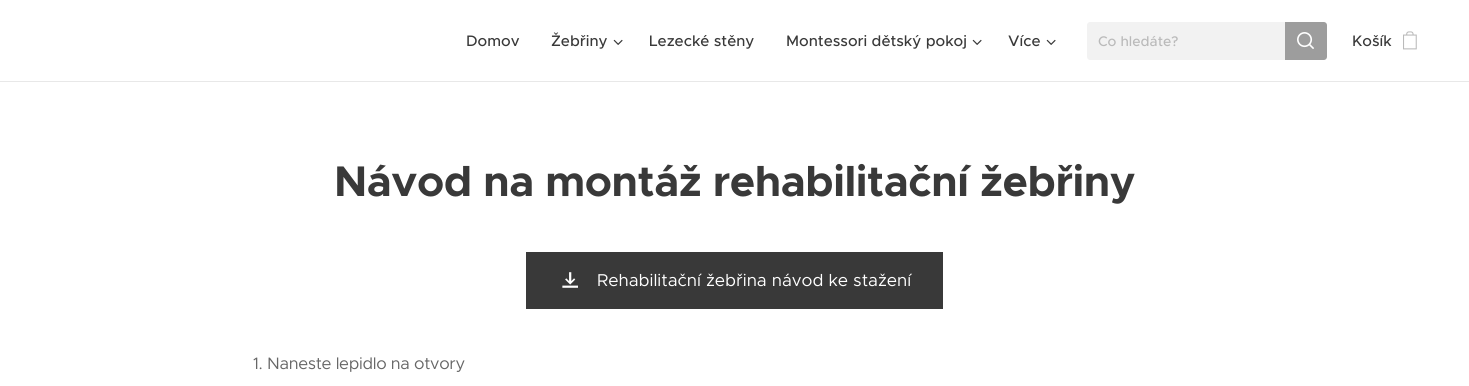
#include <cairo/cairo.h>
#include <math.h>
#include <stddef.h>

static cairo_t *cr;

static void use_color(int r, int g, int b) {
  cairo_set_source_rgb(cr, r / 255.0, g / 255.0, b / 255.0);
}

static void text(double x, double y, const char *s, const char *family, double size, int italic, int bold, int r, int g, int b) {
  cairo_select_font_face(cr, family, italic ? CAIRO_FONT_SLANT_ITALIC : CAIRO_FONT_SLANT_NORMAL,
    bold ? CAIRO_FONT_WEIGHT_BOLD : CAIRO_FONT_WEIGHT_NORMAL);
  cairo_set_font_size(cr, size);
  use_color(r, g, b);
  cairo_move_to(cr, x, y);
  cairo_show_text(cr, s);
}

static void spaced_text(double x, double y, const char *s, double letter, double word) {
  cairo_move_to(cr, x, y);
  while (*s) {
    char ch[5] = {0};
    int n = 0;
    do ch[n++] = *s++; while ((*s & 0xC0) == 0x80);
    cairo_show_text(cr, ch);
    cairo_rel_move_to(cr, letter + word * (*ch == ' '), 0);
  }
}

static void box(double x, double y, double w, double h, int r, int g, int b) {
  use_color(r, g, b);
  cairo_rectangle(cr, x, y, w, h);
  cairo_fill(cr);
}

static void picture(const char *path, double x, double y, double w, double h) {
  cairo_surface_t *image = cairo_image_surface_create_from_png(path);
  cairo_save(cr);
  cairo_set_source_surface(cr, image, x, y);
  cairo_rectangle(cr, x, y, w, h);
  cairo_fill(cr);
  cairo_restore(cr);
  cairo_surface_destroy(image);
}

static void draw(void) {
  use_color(255, 255, 255);
  cairo_paint(cr);
  picture("img_01.png", 613, 39, 10, 6);
  picture("img_01.png", 972, 39, 10, 6);
  picture("img_01.png", 1046, 39, 10, 6);
  use_color(242, 242, 242);
  cairo_new_path(cr);
  cairo_move_to(cr, 1090, 22);
  cairo_line_to(cr, 1285, 22);
  cairo_line_to(cr, 1285, 60);
  cairo_line_to(cr, 1090, 60);
  cairo_curve_to(cr, 1088.5, 60, 1087, 58.5, 1087, 57);
  cairo_line_to(cr, 1087, 25);
  cairo_curve_to(cr, 1087, 23.5, 1088.5, 22, 1090, 22);
  cairo_close_path(cr);
  cairo_fill(cr);
  use_color(157, 157, 157);
  cairo_new_path(cr);
  cairo_move_to(cr, 1285, 22);
  cairo_line_to(cr, 1324, 22);
  cairo_curve_to(cr, 1325.5, 22, 1327, 23.5, 1327, 25);
  cairo_line_to(cr, 1327, 57);
  cairo_curve_to(cr, 1327, 58.5, 1325.5, 60, 1324, 60);
  cairo_line_to(cr, 1285, 60);
  cairo_close_path(cr);
  cairo_fill(cr);
  picture("img_02.png", 1297, 32, 17, 17);
  picture("img_03.png", 1403, 31, 14, 19);
  box(0, 81, 1469, 1, 232, 232, 232);
  box(526, 252, 417, 57, 57, 57, 57);
  picture("img_04.png", 562, 272, 16, 16);
  text(466, 46, "Domov", "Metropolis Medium", 15.25, 0, 0, 57, 57, 57);
  text(551, 46, "Žebřiny", "Metropolis Medium", 15.25, 0, 0, 57, 57, 57);
  text(649, 46, "Lezecké stěny", "Metropolis Medium", 15.25, 0, 0, 57, 57, 57);
  text(786, 46, "Montessori dětský pokoj", "Metropolis Medium", 15.25, 0, 0, 57, 57, 57);
  text(1008, 46, "Více", "Metropolis Medium", 15.25, 0, 0, 57, 57, 57);
  text(1098, 46, "Co hledáte?", "Metropolis Medium", 14, 0, 0, 186, 186, 186);
  text(1352, 46, "Košík", "Metropolis Medium", 15.25, 0, 0, 57, 57, 57);
  cairo_select_font_face(cr, "Metropolis", CAIRO_FONT_SLANT_NORMAL, CAIRO_FONT_WEIGHT_BOLD);
  cairo_set_font_size(cr, 43);
  spaced_text(334, 196, "Návod na montáž rehabilitační žebřiny", -0.45, 0);
  text(597, 286, "Rehabilitační žebřina návod ke stažení", "Metropolis", 17.25, 0, 0, 255, 255, 255);
  cairo_set_font_size(cr, 16.6);
  use_color(102, 102, 102);
  spaced_text(253, 369, "1. Naneste lepidlo na otvory", -0.3, 0);
}

int main(void) {
  cairo_surface_t *surface = cairo_image_surface_create(CAIRO_FORMAT_RGB24, 1469, 386);
  cr = cairo_create(surface);
  cairo_font_options_t *options = cairo_font_options_create();
  cairo_font_options_set_hint_metrics(options, CAIRO_HINT_METRICS_OFF);
  cairo_font_options_set_hint_style(options, CAIRO_HINT_STYLE_NONE);
  cairo_set_font_options(cr, options);
  cairo_set_miter_limit(cr, 4);
  draw();
  cairo_surface_write_to_png(surface, "out.png");
  cairo_font_options_destroy(options);
  cairo_destroy(cr);
  cairo_surface_destroy(surface);
  return 0;
}
